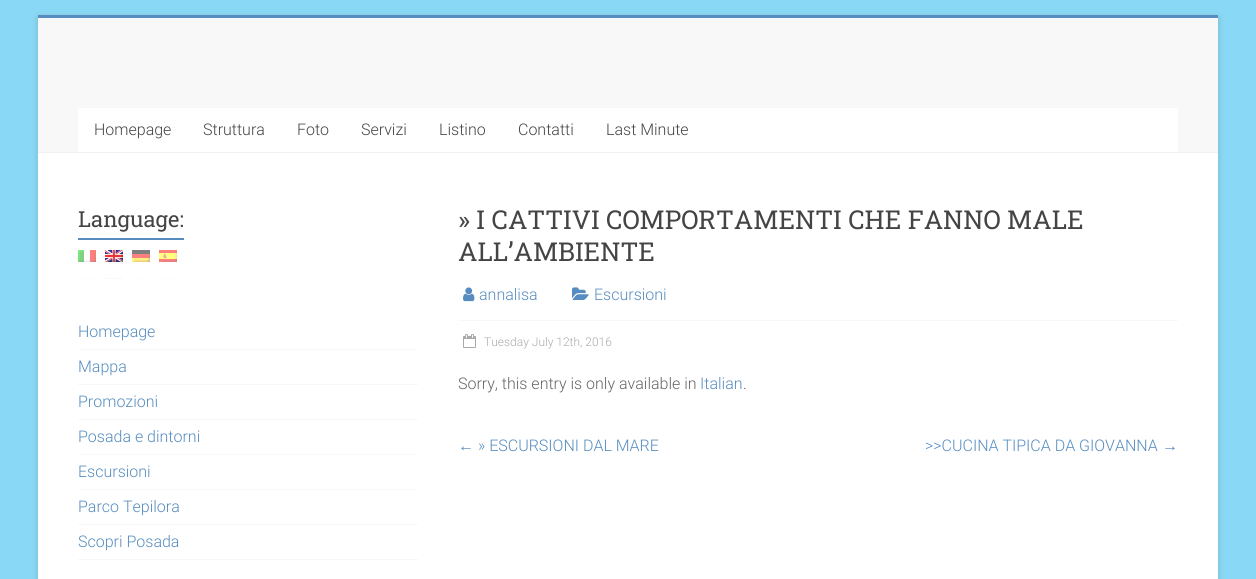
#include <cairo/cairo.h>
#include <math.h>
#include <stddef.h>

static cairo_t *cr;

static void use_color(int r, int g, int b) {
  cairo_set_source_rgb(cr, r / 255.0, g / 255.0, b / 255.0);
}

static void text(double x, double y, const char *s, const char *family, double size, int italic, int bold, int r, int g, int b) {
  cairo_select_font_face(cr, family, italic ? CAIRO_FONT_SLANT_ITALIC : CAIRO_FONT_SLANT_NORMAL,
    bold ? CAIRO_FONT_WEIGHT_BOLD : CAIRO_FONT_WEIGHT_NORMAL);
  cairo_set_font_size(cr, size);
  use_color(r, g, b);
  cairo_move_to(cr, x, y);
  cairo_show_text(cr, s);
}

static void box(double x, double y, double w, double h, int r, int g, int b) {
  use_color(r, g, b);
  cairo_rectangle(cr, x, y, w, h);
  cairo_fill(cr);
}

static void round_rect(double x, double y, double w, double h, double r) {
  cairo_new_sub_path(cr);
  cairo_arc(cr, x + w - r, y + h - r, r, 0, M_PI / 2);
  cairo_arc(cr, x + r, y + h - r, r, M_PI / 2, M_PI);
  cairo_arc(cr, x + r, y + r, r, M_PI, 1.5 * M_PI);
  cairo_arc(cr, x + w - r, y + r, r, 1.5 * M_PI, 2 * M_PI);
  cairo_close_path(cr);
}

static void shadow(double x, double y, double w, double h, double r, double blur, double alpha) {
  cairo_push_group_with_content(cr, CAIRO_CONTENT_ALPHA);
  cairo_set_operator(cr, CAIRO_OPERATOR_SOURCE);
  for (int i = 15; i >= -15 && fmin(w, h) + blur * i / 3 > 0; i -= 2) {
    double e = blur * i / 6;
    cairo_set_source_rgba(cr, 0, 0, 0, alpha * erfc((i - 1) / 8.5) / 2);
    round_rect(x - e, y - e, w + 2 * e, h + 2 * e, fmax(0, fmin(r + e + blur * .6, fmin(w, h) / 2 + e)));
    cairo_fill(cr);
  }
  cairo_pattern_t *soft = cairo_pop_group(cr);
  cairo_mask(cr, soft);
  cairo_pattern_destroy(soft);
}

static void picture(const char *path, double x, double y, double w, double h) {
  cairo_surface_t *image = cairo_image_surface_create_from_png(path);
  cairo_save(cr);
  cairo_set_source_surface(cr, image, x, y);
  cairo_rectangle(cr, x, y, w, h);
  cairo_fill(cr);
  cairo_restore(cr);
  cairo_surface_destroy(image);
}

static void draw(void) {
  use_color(137, 216, 245);
  cairo_paint(cr);
  use_color(100, 100, 100);
  shadow(38, 17, 1180, 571, 0, 3, 0.3);
  box(38, 153, 1180, 426, 255, 255, 255);
  box(38, 15, 1180, 3, 86, 140, 191);
  box(38, 18, 1180, 134, 248, 248, 248);
  box(38, 152, 1180, 1, 242, 242, 242);
  box(78, 108, 1100, 44, 255, 255, 255);
  box(78, 238, 106, 2, 86, 140, 191);
  picture("img_01.png", 78, 250, 18, 12);
  picture("img_02.png", 105, 250, 18, 12);
  picture("img_03.png", 132, 250, 18, 12);
  picture("img_04.png", 159, 250, 18, 12);
  box(78, 278, 18, 1, 252, 252, 252);
  box(105, 278, 18, 1, 249, 249, 249);
  box(132, 278, 18, 1, 252, 252, 252);
  box(159, 278, 18, 1, 252, 252, 252);
  box(78, 349, 340, 1, 248, 248, 248);
  box(78, 384, 340, 1, 248, 248, 248);
  box(78, 419, 340, 1, 248, 248, 248);
  box(78, 454, 340, 1, 248, 248, 248);
  box(78, 489, 340, 1, 248, 248, 248);
  box(78, 524, 340, 1, 248, 248, 248);
  box(78, 559, 340, 1, 248, 248, 248);
  picture("img_05.png", 463, 287, 12, 15);
  picture("img_06.png", 572, 287, 17, 13);
  box(458, 320, 720, 1, 248, 248, 248);
  picture("img_07.png", 463, 334, 13, 14);
  text(94, 135, "Homepage", "Roboto Light", 16, 0, 0, 68, 68, 68);
  text(203, 135, "Struttura", "Roboto Light", 16, 0, 0, 68, 68, 68);
  text(297, 135, "Foto", "Roboto Light", 16, 0, 0, 68, 68, 68);
  text(361, 135, "Servizi", "Roboto Light", 16, 0, 0, 68, 68, 68);
  text(439, 135, "Listino", "Roboto Light", 16, 0, 0, 68, 68, 68);
  text(518, 135, "Contatti", "Roboto Light", 16, 0, 0, 68, 68, 68);
  text(606, 135, "Last Minute", "Roboto Light", 16, 0, 0, 68, 68, 68);
  text(78, 227, "Language:", "Roboto Slab", 22, 0, 0, 68, 68, 68);
  text(78, 337, "Homepage", "Roboto Light", 16, 0, 0, 86, 140, 191);
  text(78, 372, "Mappa", "Roboto Light", 16, 0, 0, 86, 140, 191);
  text(78, 407, "Promozioni", "Roboto Light", 16, 0, 0, 86, 140, 191);
  text(78, 442, "Posada e dintorni", "Roboto Light", 16, 0, 0, 86, 140, 191);
  text(78, 477, "Escursioni", "Roboto Light", 16, 0, 0, 86, 140, 191);
  text(78, 512, "Parco Tepilora", "Roboto Light", 16, 0, 0, 86, 140, 191);
  text(78, 547, "Scopri Posada", "Roboto Light", 16, 0, 0, 86, 140, 191);
  text(458, 229, "» I CATTIVI COMPORTAMENTI CHE FANNO MALE", "Roboto Slab", 26, 0, 0, 68, 68, 68);
  text(458, 261, "ALL’AMBIENTE", "Roboto Slab", 26, 0, 0, 68, 68, 68);
  text(479, 300, "annalisa", "Roboto Light", 16, 0, 0, 86, 140, 191);
  text(594, 300, "Escursioni", "Roboto Light", 16, 0, 0, 86, 140, 191);
  text(484, 346, "Tuesday July 12th, 2016", "Roboto Light", 12, 0, 0, 170, 170, 170);
  text(458, 389, "Sorry, this entry is only available in", "Roboto Light", 16, 0, 0, 102, 102, 102);
  text(700, 389, "Italian", "Roboto Light", 16, 0, 0, 86, 140, 191);
  text(743, 389, ".", "Roboto Light", 16, 0, 0, 102, 102, 102);
  text(458, 451, "←", "Liberation Sans", 16, 0, 0, 86, 140, 191);
  text(478, 451, "» ESCURSIONI DAL MARE", "Roboto Light", 16, 0, 0, 86, 140, 191);
  text(925, 451, ">>CUCINA TIPICA DA GIOVANNA", "Roboto Light", 16, 0, 0, 86, 140, 191);
  text(1162, 451, "→", "Liberation Sans", 16, 0, 0, 86, 140, 191);
}

int main(void) {
  cairo_surface_t *surface = cairo_image_surface_create(CAIRO_FORMAT_RGB24, 1256, 579);
  cr = cairo_create(surface);
  cairo_font_options_t *options = cairo_font_options_create();
  cairo_font_options_set_hint_metrics(options, CAIRO_HINT_METRICS_OFF);
  cairo_font_options_set_hint_style(options, CAIRO_HINT_STYLE_NONE);
  cairo_set_font_options(cr, options);
  cairo_set_miter_limit(cr, 4);
  draw();
  cairo_surface_write_to_png(surface, "out.png");
  cairo_font_options_destroy(options);
  cairo_destroy(cr);
  cairo_surface_destroy(surface);
  return 0;
}
